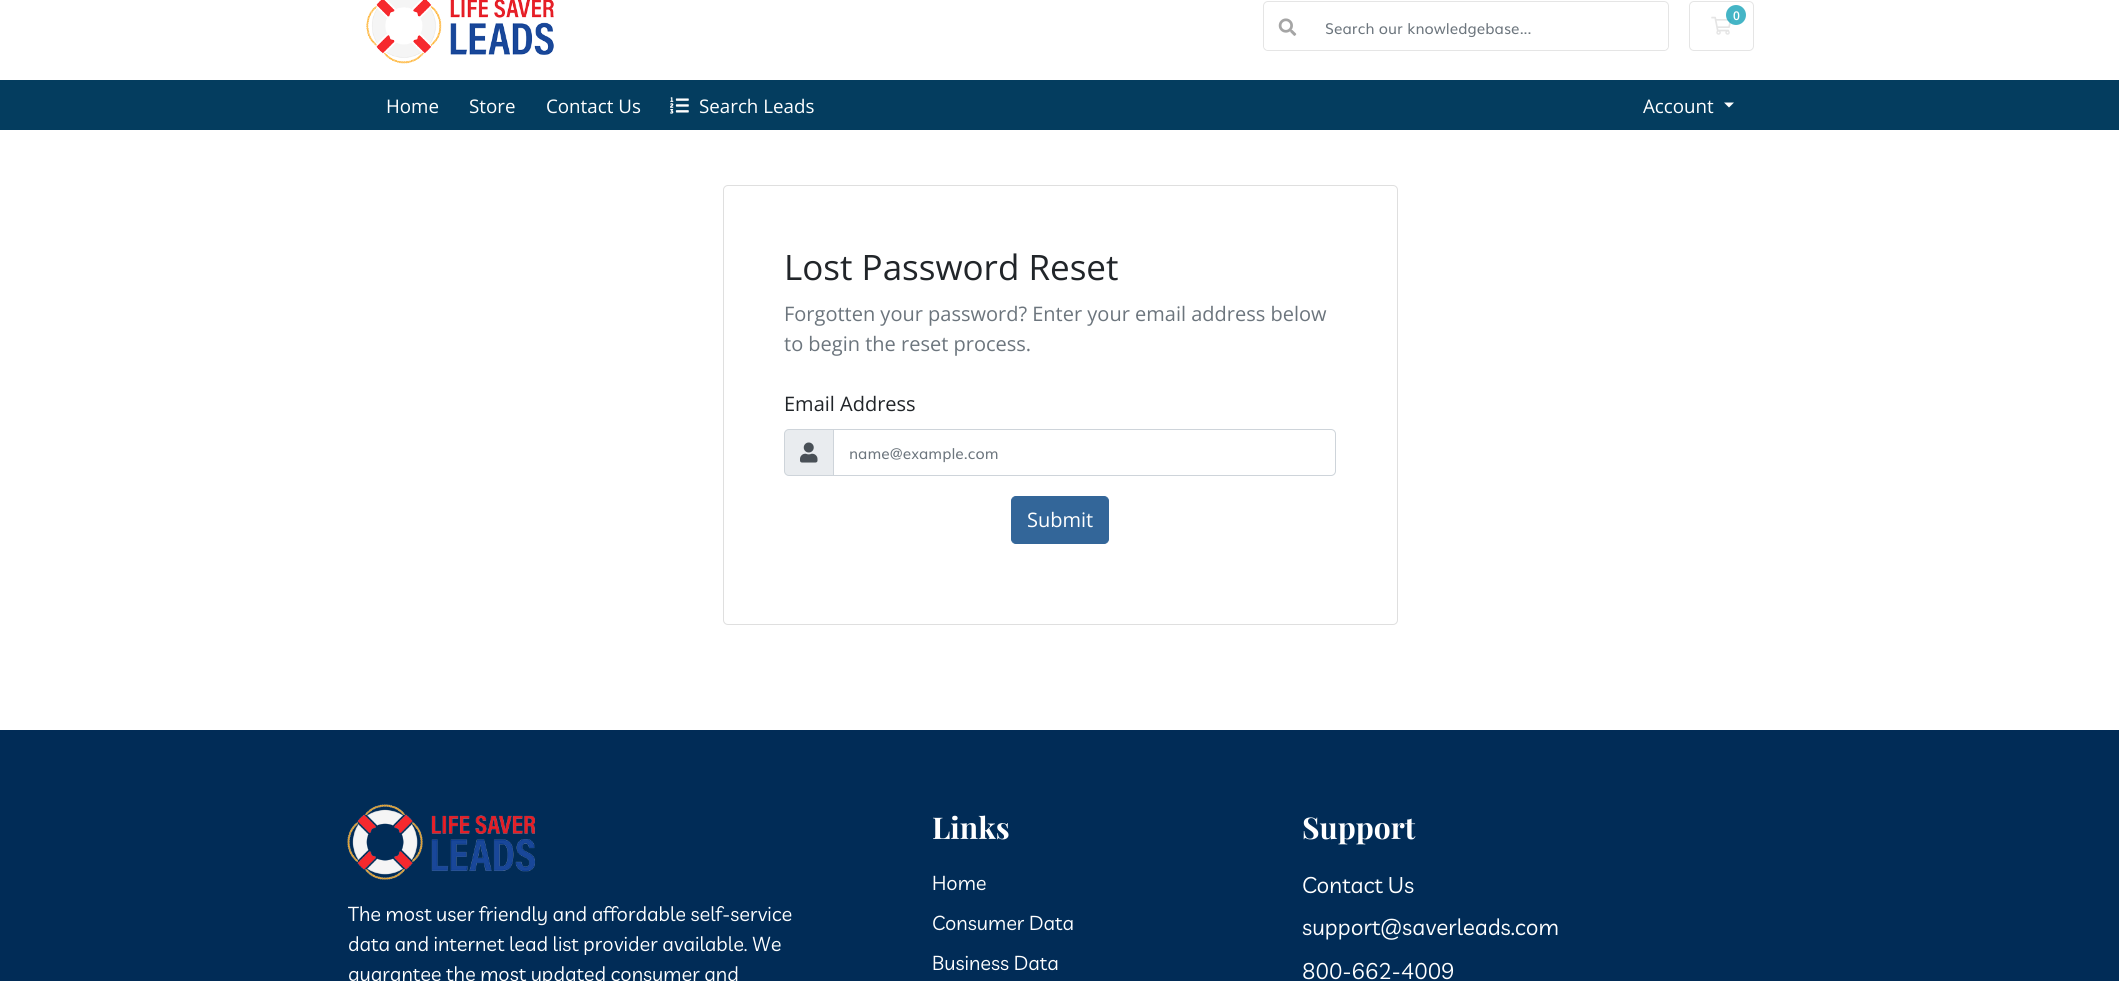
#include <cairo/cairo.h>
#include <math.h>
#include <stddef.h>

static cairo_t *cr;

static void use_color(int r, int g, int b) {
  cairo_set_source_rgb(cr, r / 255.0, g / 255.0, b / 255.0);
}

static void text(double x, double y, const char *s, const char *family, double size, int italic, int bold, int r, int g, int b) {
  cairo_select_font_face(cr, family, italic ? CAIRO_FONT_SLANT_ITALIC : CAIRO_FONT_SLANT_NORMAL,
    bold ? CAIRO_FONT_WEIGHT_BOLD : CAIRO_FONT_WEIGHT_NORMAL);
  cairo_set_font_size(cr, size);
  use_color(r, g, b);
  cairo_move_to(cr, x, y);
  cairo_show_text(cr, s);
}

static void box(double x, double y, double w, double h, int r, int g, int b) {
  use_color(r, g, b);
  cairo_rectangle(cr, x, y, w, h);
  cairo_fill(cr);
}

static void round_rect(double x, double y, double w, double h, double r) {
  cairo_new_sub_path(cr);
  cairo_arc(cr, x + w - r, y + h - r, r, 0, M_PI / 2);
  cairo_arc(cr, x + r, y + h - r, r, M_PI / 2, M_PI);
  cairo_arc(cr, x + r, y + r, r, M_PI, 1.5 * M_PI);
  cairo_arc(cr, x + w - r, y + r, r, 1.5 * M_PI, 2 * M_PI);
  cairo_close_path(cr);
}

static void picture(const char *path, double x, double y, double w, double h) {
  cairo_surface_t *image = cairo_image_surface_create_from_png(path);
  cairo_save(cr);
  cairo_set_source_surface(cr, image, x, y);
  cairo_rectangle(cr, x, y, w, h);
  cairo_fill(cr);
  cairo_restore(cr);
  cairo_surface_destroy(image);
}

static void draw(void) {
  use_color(255, 255, 255);
  cairo_paint(cr);
  picture("img_01.png", 366, 0, 188, 64);
  round_rect(1689.5, 1.5, 64, 49, 4.5);
  use_color(229, 229, 229);
  cairo_set_line_width(cr, 1);
  cairo_stroke(cr);
  picture("img_02.png", 1711, 16, 21, 19);
  cairo_set_source_rgba(cr, 0.09, 0.635, 0.722, 0.8);
  cairo_arc(cr, 1736, 15, 10, 0, 2 * M_PI);
  cairo_fill(cr);
  round_rect(1263.5, 1.5, 405, 49, 4.5);
  use_color(229, 229, 229);
  cairo_stroke(cr);
  use_color(255, 255, 255);
  cairo_new_path(cr);
  cairo_move_to(cr, 1310, 3);
  cairo_line_to(cr, 1663, 3);
  cairo_curve_to(cr, 1666, 3, 1668, 5, 1668, 8);
  cairo_line_to(cr, 1668, 45);
  cairo_curve_to(cr, 1668, 48, 1666, 50, 1663, 50);
  cairo_line_to(cr, 1310, 50);
  cairo_close_path(cr);
  cairo_fill(cr);
  cairo_new_path(cr);
  cairo_move_to(cr, 1269, 3);
  cairo_line_to(cr, 1311, 3);
  cairo_line_to(cr, 1311, 50);
  cairo_line_to(cr, 1269, 50);
  cairo_curve_to(cr, 1266, 50, 1264, 48, 1264, 45);
  cairo_line_to(cr, 1264, 8);
  cairo_curve_to(cr, 1264, 5, 1266, 3, 1269, 3);
  cairo_close_path(cr);
  cairo_fill(cr);
  picture("img_03.png", 1278, 18, 19, 18);
  box(0, 80, 2119, 50, 4, 61, 95);
  picture("img_04.png", 670, 97, 19, 17);
  use_color(255, 255, 255);
  cairo_new_path(cr);
  cairo_move_to(cr, 1724, 102.5);
  cairo_line_to(cr, 1734, 102.5);
  cairo_line_to(cr, 1729, 107.5);
  cairo_close_path(cr);
  cairo_fill(cr);
  round_rect(723.5, 185.5, 674, 439, 4.5);
  use_color(223, 223, 223);
  cairo_stroke(cr);
  use_color(233, 236, 239);
  cairo_new_path(cr);
  cairo_move_to(cr, 789, 429.5);
  cairo_line_to(cr, 833.5, 429.5);
  cairo_line_to(cr, 833.5, 475.5);
  cairo_line_to(cr, 789, 475.5);
  cairo_curve_to(cr, 786.5, 475.5, 784.5, 473.5, 784.5, 471);
  cairo_line_to(cr, 784.5, 434);
  cairo_curve_to(cr, 784.5, 431.5, 786.5, 429.5, 789, 429.5);
  cairo_close_path(cr);
  cairo_fill_preserve(cr);
  use_color(206, 212, 218);
  cairo_stroke(cr);
  picture("img_05.png", 800, 442, 18, 21);
  cairo_new_path(cr);
  cairo_move_to(cr, 833.5, 429.5);
  cairo_line_to(cr, 1331, 429.5);
  cairo_curve_to(cr, 1333.5, 429.5, 1335.5, 431.5, 1335.5, 434);
  cairo_line_to(cr, 1335.5, 471);
  cairo_curve_to(cr, 1335.5, 473.5, 1333.5, 475.5, 1331, 475.5);
  cairo_line_to(cr, 833.5, 475.5);
  cairo_close_path(cr);
  cairo_stroke(cr);
  use_color(51, 102, 153);
  round_rect(1011.5, 496.5, 97, 47, 4.5);
  cairo_fill_preserve(cr);
  cairo_stroke(cr);
  box(0, 730, 2119, 251, 1, 44, 87);
  picture("img_06.png", 347, 804, 188, 76);
  text(1733, 20, "0", "Open Sans SemiBold", 12, 0, 0, 255, 255, 255);
  text(1325, 34, "Search our knowledgebase...", "Muli", 15, 0, 0, 108, 117, 125);
  text(386, 113, "Home", "Open Sans", 18.75, 0, 0, 255, 255, 255);
  text(469, 113, "Store", "Open Sans", 18.75, 0, 0, 255, 255, 255);
  text(546, 113, "Contact Us", "Open Sans", 18.75, 0, 0, 255, 255, 255);
  text(699, 113, "Search Leads", "Open Sans", 18.75, 0, 0, 255, 255, 255);
  text(1643, 113, "Account", "Open Sans", 18.75, 0, 0, 255, 255, 255);
  text(784, 280, "Lost Password Reset", "Open Sans", 35, 0, 0, 33, 37, 41);
  text(784, 321, "Forgotten your password? Enter your email address below", "Open Sans", 20, 0, 0, 108, 117, 125);
  text(784, 351, "to begin the reset process.", "Open Sans", 20, 0, 0, 108, 117, 125);
  text(784, 411, "Email Address", "Open Sans", 20, 0, 0, 33, 37, 41);
  text(849, 459, "name@example.com", "Muli", 15, 0, 0, 108, 117, 125);
  text(1027, 527, "Submit", "Open Sans", 20, 0, 0, 255, 255, 255);
  text(348, 921, "The most user friendly and affordable self-service", "Livvic", 20, 0, 0, 255, 255, 255);
  text(348, 951, "data and internet lead list provider available. We", "Livvic", 20, 0, 0, 255, 255, 255);
  text(348, 981, "guarantee the most updated consumer and", "Livvic", 20, 0, 0, 255, 255, 255);
  text(932, 839, "Links", "Playfair Display", 30, 0, 1, 255, 255, 255);
  text(932, 890, "Home", "Livvic", 20, 0, 0, 255, 255, 255);
  text(932, 930, "Consumer Data", "Livvic", 20, 0, 0, 255, 255, 255);
  text(932, 970, "Business Data", "Livvic", 20, 0, 0, 255, 255, 255);
  text(1302, 839, "Support", "Playfair Display", 30, 0, 1, 255, 255, 255);
  text(1302, 893, "Contact Us", "Livvic", 22.5, 0, 0, 255, 255, 255);
  text(1302, 935, "support@saverleads.com", "Livvic", 22.5, 0, 0, 255, 255, 255);
  text(1302, 979, "800-662-4009", "Livvic", 22.5, 0, 0, 255, 255, 255);
}

int main(void) {
  cairo_surface_t *surface = cairo_image_surface_create(CAIRO_FORMAT_RGB24, 2119, 981);
  cr = cairo_create(surface);
  cairo_font_options_t *options = cairo_font_options_create();
  cairo_font_options_set_hint_metrics(options, CAIRO_HINT_METRICS_OFF);
  cairo_font_options_set_hint_style(options, CAIRO_HINT_STYLE_NONE);
  cairo_set_font_options(cr, options);
  cairo_set_miter_limit(cr, 4);
  draw();
  cairo_surface_write_to_png(surface, "out.png");
  cairo_font_options_destroy(options);
  cairo_destroy(cr);
  cairo_surface_destroy(surface);
  return 0;
}
